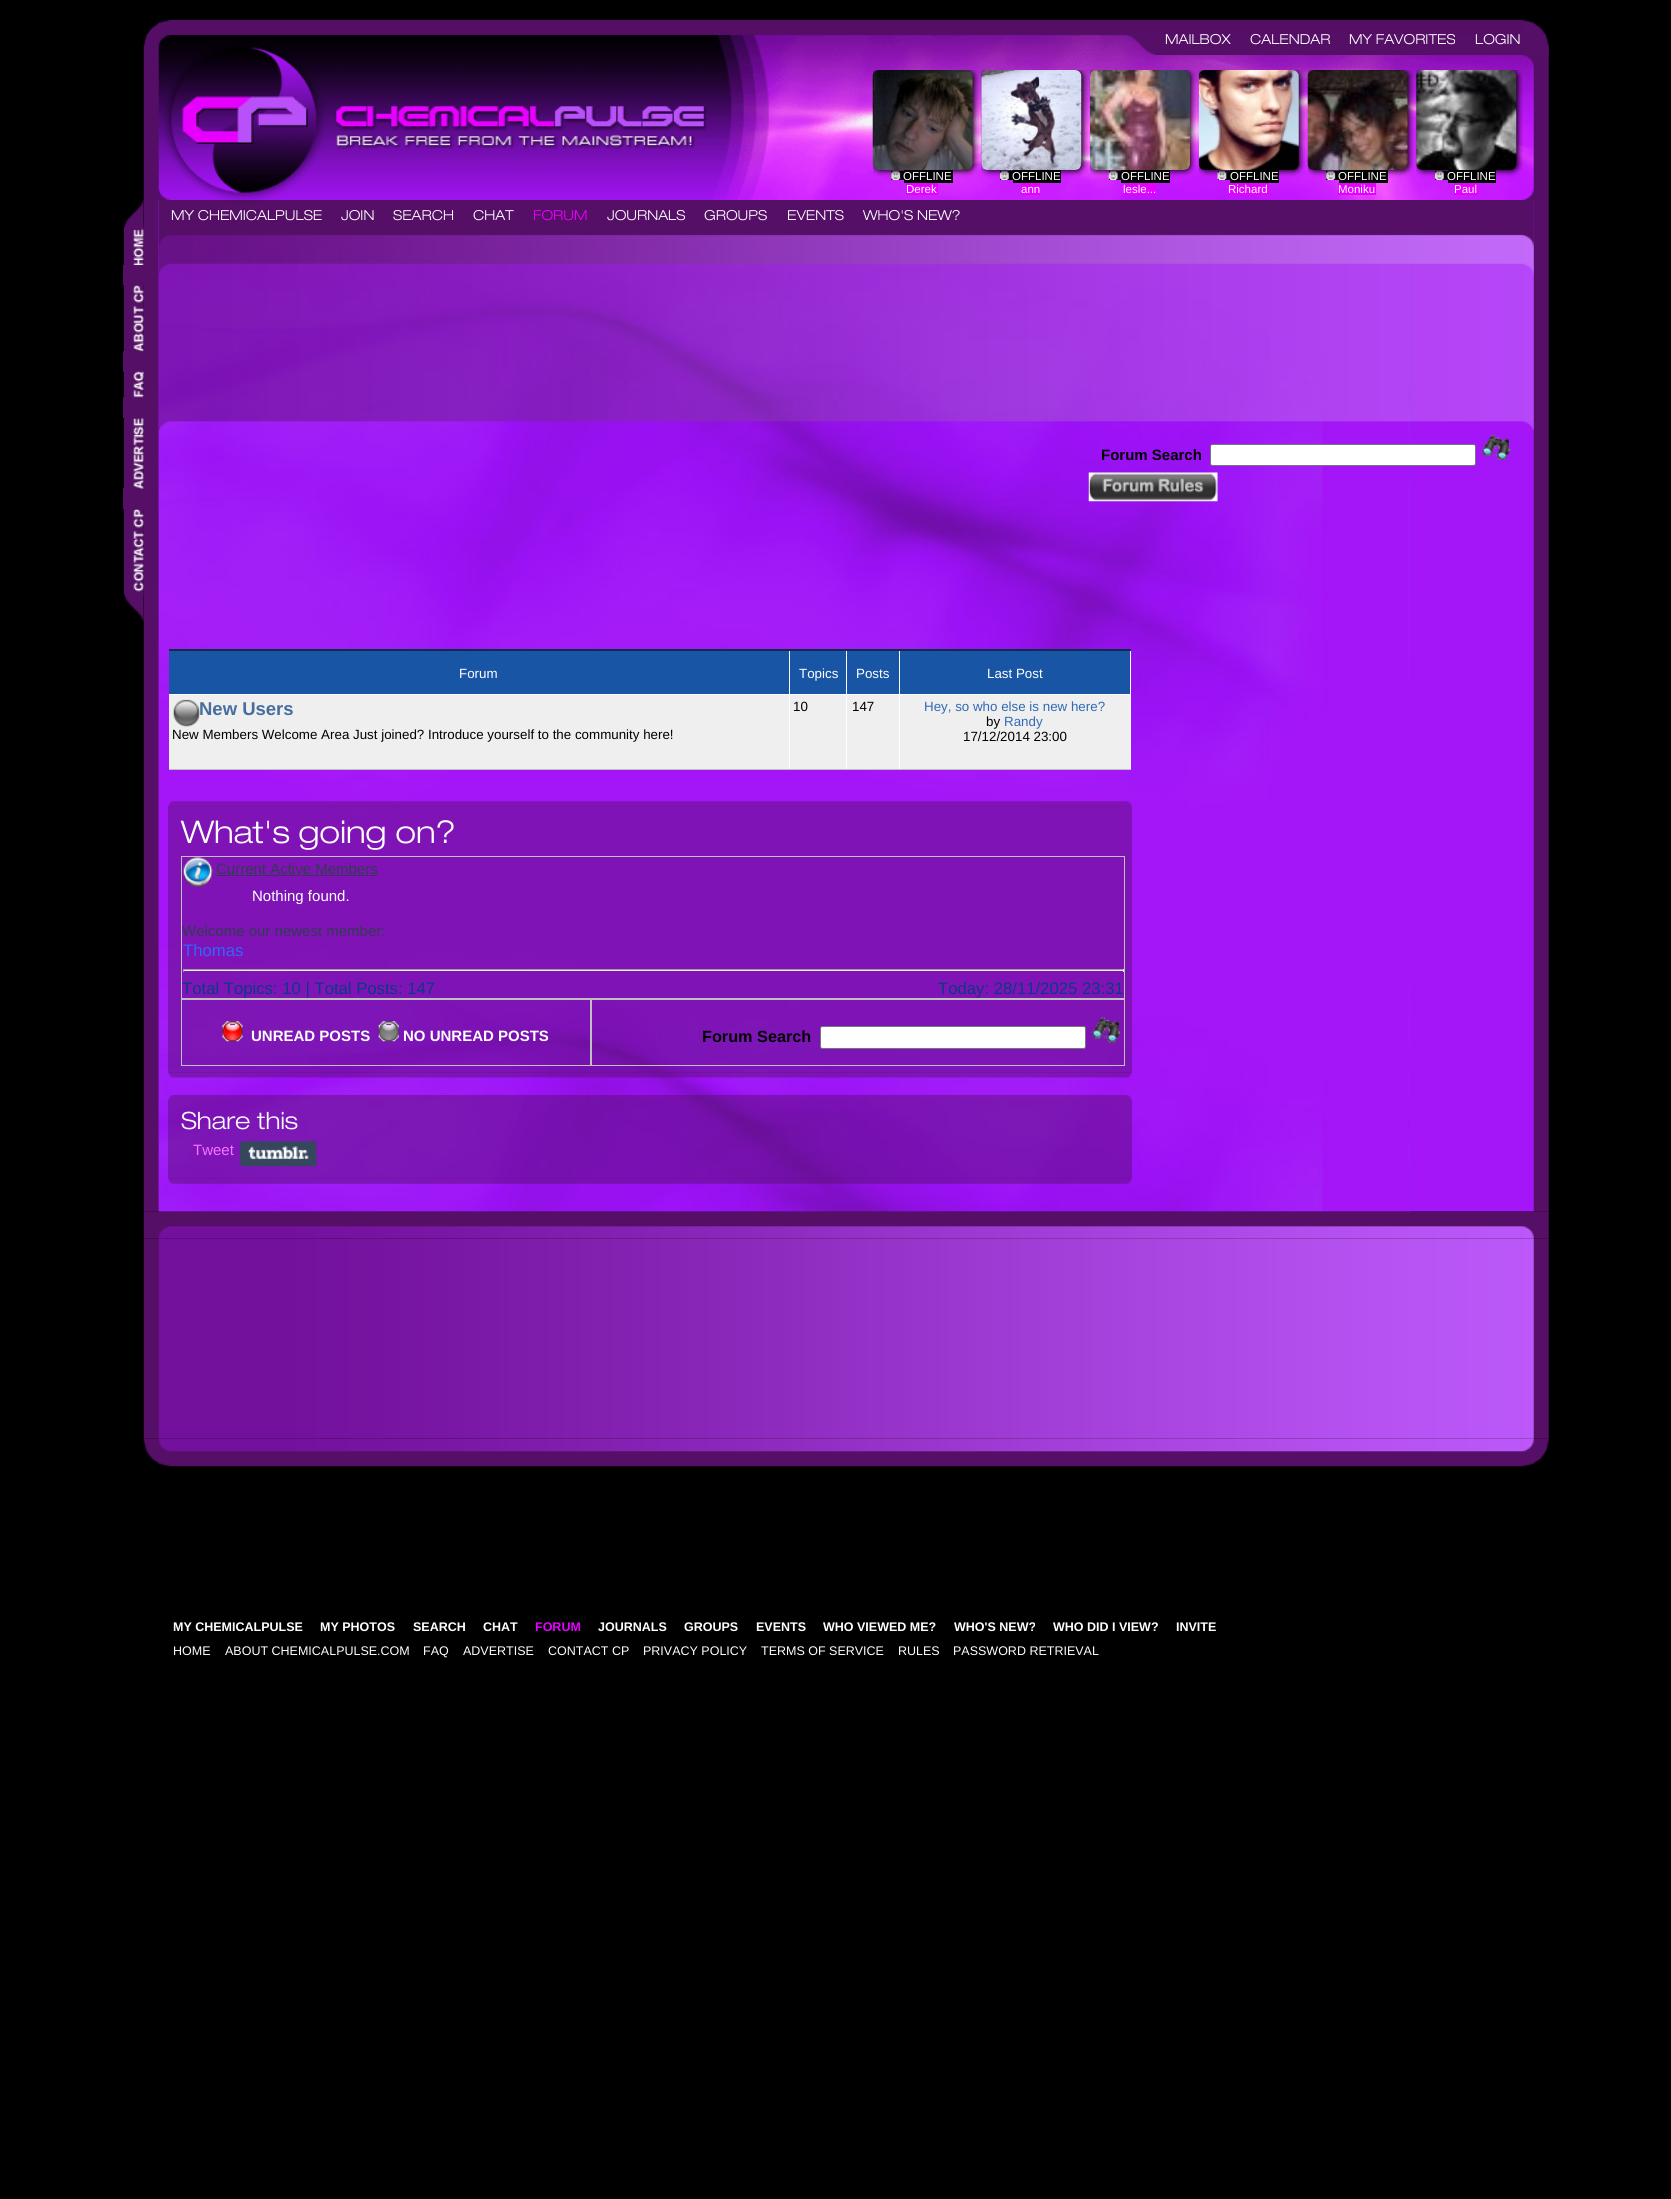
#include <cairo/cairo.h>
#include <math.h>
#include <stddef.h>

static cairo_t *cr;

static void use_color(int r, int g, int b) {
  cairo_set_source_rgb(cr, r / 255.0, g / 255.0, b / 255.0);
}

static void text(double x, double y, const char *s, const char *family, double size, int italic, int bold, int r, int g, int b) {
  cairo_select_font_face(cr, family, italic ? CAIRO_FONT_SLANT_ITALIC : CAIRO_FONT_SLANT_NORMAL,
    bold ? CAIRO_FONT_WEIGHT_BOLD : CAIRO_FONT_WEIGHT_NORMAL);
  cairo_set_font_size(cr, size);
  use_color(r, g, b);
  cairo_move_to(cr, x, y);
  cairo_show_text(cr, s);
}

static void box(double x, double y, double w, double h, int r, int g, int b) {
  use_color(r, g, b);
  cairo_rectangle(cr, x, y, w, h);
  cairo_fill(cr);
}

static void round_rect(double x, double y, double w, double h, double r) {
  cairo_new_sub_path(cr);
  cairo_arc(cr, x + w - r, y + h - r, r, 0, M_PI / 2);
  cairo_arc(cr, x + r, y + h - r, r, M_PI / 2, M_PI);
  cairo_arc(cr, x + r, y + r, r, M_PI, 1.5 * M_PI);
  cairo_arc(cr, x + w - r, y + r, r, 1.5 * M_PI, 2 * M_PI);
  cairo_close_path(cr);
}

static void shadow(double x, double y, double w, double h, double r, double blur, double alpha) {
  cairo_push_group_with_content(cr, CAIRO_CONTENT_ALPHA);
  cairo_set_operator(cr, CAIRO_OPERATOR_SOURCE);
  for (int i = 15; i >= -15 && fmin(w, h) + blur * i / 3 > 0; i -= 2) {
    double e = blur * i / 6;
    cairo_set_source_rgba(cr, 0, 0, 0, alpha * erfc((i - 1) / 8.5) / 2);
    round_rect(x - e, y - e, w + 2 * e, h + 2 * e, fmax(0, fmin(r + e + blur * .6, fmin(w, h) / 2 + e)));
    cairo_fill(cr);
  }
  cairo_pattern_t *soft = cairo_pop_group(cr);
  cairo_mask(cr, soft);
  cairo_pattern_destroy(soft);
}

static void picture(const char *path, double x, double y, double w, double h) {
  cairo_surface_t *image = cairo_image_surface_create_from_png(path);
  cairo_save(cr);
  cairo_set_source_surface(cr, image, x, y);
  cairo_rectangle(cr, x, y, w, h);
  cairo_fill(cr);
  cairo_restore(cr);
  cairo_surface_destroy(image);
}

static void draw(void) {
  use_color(0, 0, 0);
  cairo_paint(cr);
  picture("img_01.png", 142, 20, 1407, 180);
  picture("img_02.png", 1127, 35, 38, 20);
  box(1165, 35, 357, 20, 85, 15, 102);
  picture("img_03.png", 1523, 20, 26, 35);
  box(891, 171, 13, 9, 0, 0, 0);
  picture("img_05.png", 891, 171, 10, 9);
  box(904, 170, 49, 13, 0, 0, 0);
  cairo_save(cr);
  cairo_rectangle(cr, 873, 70, 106, 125);
  cairo_clip(cr);
  use_color(0, 0, 0);
  shadow(874, 71, 100, 100, 6, 3, 1);
  cairo_restore(cr);
  picture("img_04.png", 872, 70, 101, 100);
  box(906, 183, 32, 12, 230, 0, 255);
  box(1000, 171, 13, 9, 0, 0, 0);
  picture("img_07.png", 1000, 171, 9, 9);
  box(1013, 170, 48, 13, 0, 0, 0);
  cairo_save(cr);
  cairo_rectangle(cr, 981, 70, 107, 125);
  cairo_clip(cr);
  use_color(0, 0, 0);
  shadow(983, 71, 100, 100, 6, 3, 1);
  cairo_restore(cr);
  picture("img_06.png", 981, 70, 101, 100);
  box(1021, 183, 19, 12, 230, 0, 255);
  box(1109, 171, 12, 9, 0, 0, 0);
  picture("img_09.png", 1108, 171, 10, 9);
  box(1121, 170, 49, 13, 0, 0, 0);
  cairo_save(cr);
  cairo_rectangle(cr, 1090, 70, 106, 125);
  cairo_clip(cr);
  use_color(0, 0, 0);
  shadow(1091, 71, 100, 100, 6, 3, 1);
  cairo_restore(cr);
  picture("img_08.png", 1090, 70, 100, 100);
  box(1123, 183, 33, 12, 230, 0, 255);
  box(1218, 171, 12, 9, 0, 0, 0);
  picture("img_11.png", 1217, 171, 10, 9);
  box(1230, 170, 49, 13, 0, 0, 0);
  cairo_save(cr);
  cairo_rectangle(cr, 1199, 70, 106, 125);
  cairo_clip(cr);
  use_color(0, 0, 0);
  shadow(1200, 71, 100, 100, 6, 3, 1);
  cairo_restore(cr);
  picture("img_10.png", 1198, 70, 101, 100);
  box(1228, 183, 41, 12, 230, 0, 255);
  box(1326, 171, 13, 9, 0, 0, 0);
  picture("img_05.png", 1326, 171, 10, 9);
  box(1339, 170, 49, 13, 0, 0, 0);
  cairo_save(cr);
  cairo_rectangle(cr, 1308, 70, 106, 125);
  cairo_clip(cr);
  use_color(0, 0, 0);
  shadow(1309, 71, 100, 100, 6, 3, 1);
  cairo_restore(cr);
  picture("img_12.png", 1307, 70, 101, 100);
  box(1338, 183, 38, 12, 230, 0, 255);
  box(1435, 171, 13, 9, 0, 0, 0);
  picture("img_14.png", 1435, 171, 9, 9);
  box(1448, 170, 48, 13, 0, 0, 0);
  cairo_save(cr);
  cairo_rectangle(cr, 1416, 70, 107, 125);
  cairo_clip(cr);
  use_color(0, 0, 0);
  shadow(1418, 71, 100, 100, 6, 3, 1);
  cairo_restore(cr);
  picture("img_13.png", 1416, 70, 101, 100);
  box(1454, 183, 24, 12, 230, 0, 255);
  picture("img_39.png", 143, 1211, 1406, 28);
  picture("img_15.png", 143, 200, 1406, 1012);
  picture("img_16.png", 123, 200, 21, 65);
  box(123, 265, 21, 20, 85, 15, 102);
  box(123, 351, 21, 21, 85, 15, 102);
  picture("img_17.png", 123, 285, 21, 67);
  box(123, 397, 21, 21, 85, 15, 102);
  picture("img_18.png", 123, 371, 21, 27);
  box(123, 488, 21, 21, 85, 15, 102);
  picture("img_19.png", 123, 417, 21, 72);
  picture("img_20.png", 123, 509, 21, 112);
  picture("img_21.png", 158, 200, 1252, 1012);
  picture("img_22.png", 158, 200, 1376, 230);
  use_color(255, 255, 255);
  round_rect(1210.5, 444.5, 265, 21, 2);
  cairo_fill_preserve(cr);
  use_color(118, 118, 118);
  cairo_set_line_width(cr, 1);
  cairo_stroke(cr);
  picture("img_23.png", 1482, 435, 29, 25);
  picture("img_24.png", 1088, 472, 130, 30);
  box(169, 649, 962, 2, 15, 44, 79);
  box(169, 651, 620, 43, 24, 85, 165);
  box(789, 651, 1, 119, 255, 255, 255);
  box(169, 694, 621, 1, 255, 255, 255);
  box(790, 651, 109, 43, 24, 85, 165);
  box(846, 651, 1, 44, 255, 255, 255);
  box(790, 694, 58, 1, 255, 255, 255);
  box(899, 651, 1, 119, 255, 255, 255);
  box(848, 694, 52, 1, 255, 255, 255);
  box(900, 651, 230, 43, 24, 85, 165);
  box(1130, 651, 1, 119, 255, 255, 255);
  box(900, 694, 231, 1, 255, 255, 255);
  box(169, 695, 620, 74, 239, 239, 239);
  box(169, 769, 621, 1, 191, 191, 191);
  picture("img_25.png", 173, 699, 27, 28);
  box(790, 695, 109, 74, 239, 239, 239);
  box(846, 695, 1, 75, 255, 255, 255);
  box(790, 769, 341, 1, 191, 191, 191);
  box(900, 695, 230, 74, 239, 239, 239);
  cairo_set_source_rgba(cr, 0.329, 0.063, 0.4, 0.45);
  cairo_rectangle(cr, 168, 806, 964, 267);
  cairo_fill(cr);
  picture("img_26.png", 168, 801, 482, 6);
  picture("img_27.png", 650, 801, 482, 6);
  cairo_rectangle(cr, 181.5, 856.5, 943, 142);
  use_color(192, 192, 192);
  cairo_stroke(cr);
  picture("img_28.png", 182, 857, 31, 31);
  box(216, 875, 162, 1, 49, 59, 79);
  box(183, 969, 941, 1, 159, 159, 159);
  box(1123, 969, 1, 3, 238, 238, 238);
  box(183, 970, 941, 1, 238, 238, 238);
  box(183, 969, 1, 3, 159, 159, 159);
  cairo_rectangle(cr, 181.5, 999.5, 409, 66);
  use_color(192, 192, 192);
  cairo_stroke(cr);
  picture("img_29.png", 222, 1021, 21, 21);
  picture("img_30.png", 378, 1021, 21, 21);
  cairo_rectangle(cr, 591.5, 999.5, 533, 66);
  cairo_stroke(cr);
  use_color(255, 255, 255);
  round_rect(820.5, 1026.5, 265, 22, 2);
  cairo_fill_preserve(cr);
  use_color(118, 118, 118);
  cairo_stroke(cr);
  picture("img_31.png", 1092, 1017, 29, 26);
  picture("img_32.png", 168, 1072, 482, 6);
  picture("img_33.png", 650, 1072, 482, 6);
  picture("img_34.png", 168, 1095, 482, 5);
  picture("img_35.png", 650, 1095, 482, 5);
  cairo_set_source_rgba(cr, 0.329, 0.063, 0.4, 0.45);
  cairo_rectangle(cr, 168, 1100, 964, 79);
  cairo_fill(cr);
  picture("img_36.png", 240, 1141, 77, 26);
  picture("img_37.png", 168, 1178, 482, 6);
  picture("img_38.png", 650, 1178, 482, 6);
  picture("img_41.png", 143, 1238, 1406, 201);
  picture("img_40.png", 143, 1438, 1406, 29);
  text(1165, 44, "MAILBOX", "Helvetica Neue Light", 13.75, 0, 0, 255, 255, 255);
  text(1250, 44, "CALENDAR", "Helvetica Neue Light", 13.75, 0, 0, 255, 255, 255);
  text(1349, 44, "MY FAVORITES", "Helvetica Neue Light", 13.75, 0, 0, 255, 255, 255);
  text(1475, 44, "LOGIN", "Helvetica Neue Light", 13.75, 0, 0, 255, 255, 255);
  text(903, 180, "OFFLINE", "Liberation Sans", 11.5, 0, 0, 255, 255, 255);
  text(906, 193, "Derek", "Liberation Sans", 11.5, 0, 0, 255, 255, 255);
  text(1012, 180, "OFFLINE", "Liberation Sans", 11.5, 0, 0, 255, 255, 255);
  text(1021, 193, "ann", "Liberation Sans", 11.5, 0, 0, 255, 255, 255);
  text(1121, 180, "OFFLINE", "Liberation Sans", 11.5, 0, 0, 255, 255, 255);
  text(1123, 193, "lesle...", "Liberation Sans", 11.5, 0, 0, 255, 255, 255);
  text(1230, 180, "OFFLINE", "Liberation Sans", 11.5, 0, 0, 255, 255, 255);
  text(1228, 193, "Richard", "Liberation Sans", 11.5, 0, 0, 255, 255, 255);
  text(1338, 180, "OFFLINE", "Liberation Sans", 11.5, 0, 0, 255, 255, 255);
  text(1338, 193, "Moniku", "Liberation Sans", 11.5, 0, 0, 255, 255, 255);
  text(1447, 180, "OFFLINE", "Liberation Sans", 11.5, 0, 0, 255, 255, 255);
  text(1454, 193, "Paul", "Liberation Sans", 11.5, 0, 0, 255, 255, 255);
  text(171, 220, "MY CHEMICALPULSE", "Helvetica Neue Light", 13.75, 0, 0, 255, 255, 255);
  text(341, 220, "JOIN", "Helvetica Neue Light", 13.75, 0, 0, 255, 255, 255);
  text(393, 220, "SEARCH", "Helvetica Neue Light", 13.75, 0, 0, 255, 255, 255);
  text(473, 220, "CHAT", "Helvetica Neue Light", 13.75, 0, 0, 255, 255, 255);
  text(533, 220, "FORUM", "Helvetica Neue Light", 13.75, 0, 0, 230, 0, 255);
  text(607, 220, "JOURNALS", "Helvetica Neue Light", 13.75, 0, 0, 255, 255, 255);
  text(704, 220, "GROUPS", "Helvetica Neue Light", 13.75, 0, 0, 255, 255, 255);
  text(787, 220, "EVENTS", "Helvetica Neue Light", 13.75, 0, 0, 255, 255, 255);
  text(863, 220, "WHO'S NEW?", "Helvetica Neue Light", 13.75, 0, 0, 255, 255, 255);
  text(1101, 460, "Forum Search", "Liberation Sans", 15, 0, 1, 0, 0, 0);
  text(459, 678, "Forum", "Liberation Sans", 13.35, 0, 0, 255, 255, 255);
  text(799, 678, "Topics", "Liberation Sans", 13.35, 0, 0, 255, 255, 255);
  text(856, 678, "Posts", "Liberation Sans", 13.35, 0, 0, 255, 255, 255);
  text(987, 678, "Last Post", "Liberation Sans", 13.35, 0, 0, 255, 255, 255);
  text(199, 715, "New Users", "Liberation Sans", 18.5, 0, 1, 69, 110, 159);
  text(172, 739, "New Members Welcome Area Just joined? Introduce yourself to the community here!", "Liberation Sans", 13.35, 0, 0, 0, 0, 0);
  text(793, 711, "10", "Liberation Sans", 13.35, 0, 0, 0, 0, 0);
  text(852, 711, "147", "Liberation Sans", 13.35, 0, 0, 0, 0, 0);
  text(924, 711, "Hey, so who else is new here?", "Liberation Sans", 13.35, 0, 0, 49, 105, 181);
  text(986, 726, "by", "Liberation Sans", 13.35, 0, 0, 0, 0, 0);
  text(1004, 726, "Randy", "Liberation Sans", 13.35, 0, 0, 49, 105, 181);
  text(963, 741, "17/12/2014 23:00", "Liberation Sans", 13.35, 0, 0, 0, 0, 0);
  text(181, 843, "What's going on?", "Helvetica Neue Light", 31.25, 0, 0, 255, 255, 255);
  text(216, 874, "Current Active Members", "Liberation Sans", 15, 0, 0, 49, 59, 79);
  text(252, 901, "Nothing found.", "Liberation Sans", 15, 0, 0, 255, 255, 255);
  text(182, 936, "Welcome our newest member:", "Liberation Sans", 15, 0, 0, 49, 59, 79);
  text(183, 956, "Thomas", "Liberation Sans", 16.7, 0, 0, 47, 103, 255);
  text(182, 994, "Total Topics: 10 | Total Posts: 147", "Liberation Sans", 16.7, 0, 0, 7, 59, 127);
  text(938, 994, "Today: 28/11/2025 23:31", "Liberation Sans", 16.7, 0, 0, 7, 59, 127);
  text(251, 1041, "UNREAD POSTS", "Liberation Sans", 15, 0, 1, 255, 255, 255);
  text(403, 1041, "NO UNREAD POSTS", "Liberation Sans", 15, 0, 1, 255, 255, 255);
  text(702, 1042, "Forum Search", "Liberation Sans", 16.25, 0, 1, 0, 0, 0);
  text(181, 1129, "Share this", "Helvetica Neue Light", 23.75, 0, 0, 255, 255, 255);
  text(193, 1155, "Tweet", "Liberation Sans", 15, 0, 0, 250, 115, 255);
  text(173, 1631, "MY CHEMICALPULSE", "Liberation Sans", 12.5, 0, 1, 255, 255, 255);
  text(320, 1631, "MY PHOTOS", "Liberation Sans", 12.5, 0, 1, 255, 255, 255);
  text(413, 1631, "SEARCH", "Liberation Sans", 12.5, 0, 1, 255, 255, 255);
  text(483, 1631, "CHAT", "Liberation Sans", 12.5, 0, 1, 255, 255, 255);
  text(535, 1631, "FORUM", "Liberation Sans", 12.5, 0, 1, 230, 0, 255);
  text(598, 1631, "JOURNALS", "Liberation Sans", 12.5, 0, 1, 255, 255, 255);
  text(684, 1631, "GROUPS", "Liberation Sans", 12.5, 0, 1, 255, 255, 255);
  text(756, 1631, "EVENTS", "Liberation Sans", 12.5, 0, 1, 255, 255, 255);
  text(823, 1631, "WHO VIEWED ME?", "Liberation Sans", 12.5, 0, 1, 255, 255, 255);
  text(954, 1631, "WHO'S NEW?", "Liberation Sans", 12.5, 0, 1, 255, 255, 255);
  text(1053, 1631, "WHO DID I VIEW?", "Liberation Sans", 12.5, 0, 1, 255, 255, 255);
  text(1176, 1631, "INVITE", "Liberation Sans", 12.5, 0, 1, 255, 255, 255);
  text(173, 1655, "HOME", "Liberation Sans", 12.5, 0, 0, 255, 255, 255);
  text(225, 1655, "ABOUT CHEMICALPULSE.COM", "Liberation Sans", 12.5, 0, 0, 255, 255, 255);
  text(423, 1655, "FAQ", "Liberation Sans", 12.5, 0, 0, 255, 255, 255);
  text(463, 1655, "ADVERTISE", "Liberation Sans", 12.5, 0, 0, 255, 255, 255);
  text(548, 1655, "CONTACT CP", "Liberation Sans", 12.5, 0, 0, 255, 255, 255);
  text(643, 1655, "PRIVACY POLICY", "Liberation Sans", 12.5, 0, 0, 255, 255, 255);
  text(761, 1655, "TERMS OF SERVICE", "Liberation Sans", 12.5, 0, 0, 255, 255, 255);
  text(898, 1655, "RULES", "Liberation Sans", 12.5, 0, 0, 255, 255, 255);
  text(953, 1655, "PASSWORD RETRIEVAL", "Liberation Sans", 12.5, 0, 0, 255, 255, 255);
}

int main(void) {
  cairo_surface_t *surface = cairo_image_surface_create(CAIRO_FORMAT_RGB24, 1671, 2199);
  cr = cairo_create(surface);
  cairo_font_options_t *options = cairo_font_options_create();
  cairo_font_options_set_hint_metrics(options, CAIRO_HINT_METRICS_OFF);
  cairo_font_options_set_hint_style(options, CAIRO_HINT_STYLE_NONE);
  cairo_set_font_options(cr, options);
  cairo_set_miter_limit(cr, 4);
  draw();
  cairo_surface_write_to_png(surface, "out.png");
  cairo_font_options_destroy(options);
  cairo_destroy(cr);
  cairo_surface_destroy(surface);
  return 0;
}
